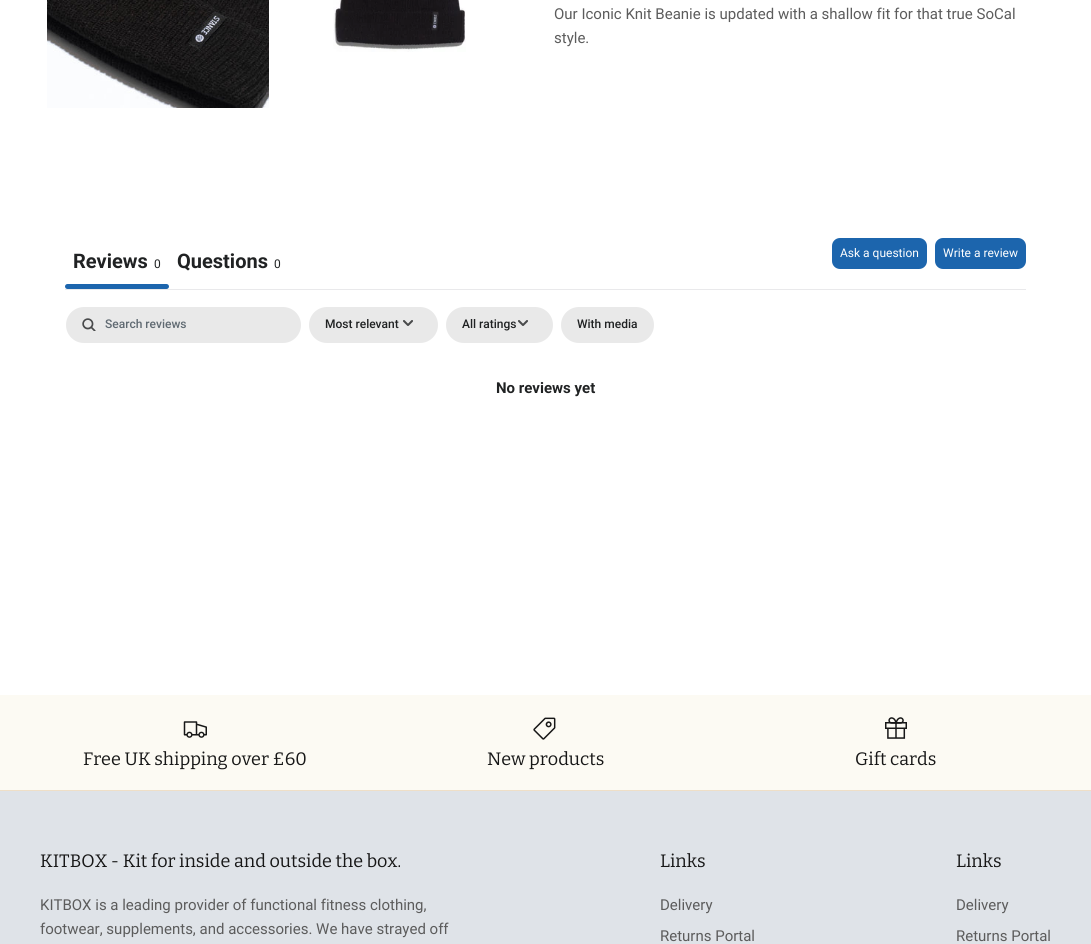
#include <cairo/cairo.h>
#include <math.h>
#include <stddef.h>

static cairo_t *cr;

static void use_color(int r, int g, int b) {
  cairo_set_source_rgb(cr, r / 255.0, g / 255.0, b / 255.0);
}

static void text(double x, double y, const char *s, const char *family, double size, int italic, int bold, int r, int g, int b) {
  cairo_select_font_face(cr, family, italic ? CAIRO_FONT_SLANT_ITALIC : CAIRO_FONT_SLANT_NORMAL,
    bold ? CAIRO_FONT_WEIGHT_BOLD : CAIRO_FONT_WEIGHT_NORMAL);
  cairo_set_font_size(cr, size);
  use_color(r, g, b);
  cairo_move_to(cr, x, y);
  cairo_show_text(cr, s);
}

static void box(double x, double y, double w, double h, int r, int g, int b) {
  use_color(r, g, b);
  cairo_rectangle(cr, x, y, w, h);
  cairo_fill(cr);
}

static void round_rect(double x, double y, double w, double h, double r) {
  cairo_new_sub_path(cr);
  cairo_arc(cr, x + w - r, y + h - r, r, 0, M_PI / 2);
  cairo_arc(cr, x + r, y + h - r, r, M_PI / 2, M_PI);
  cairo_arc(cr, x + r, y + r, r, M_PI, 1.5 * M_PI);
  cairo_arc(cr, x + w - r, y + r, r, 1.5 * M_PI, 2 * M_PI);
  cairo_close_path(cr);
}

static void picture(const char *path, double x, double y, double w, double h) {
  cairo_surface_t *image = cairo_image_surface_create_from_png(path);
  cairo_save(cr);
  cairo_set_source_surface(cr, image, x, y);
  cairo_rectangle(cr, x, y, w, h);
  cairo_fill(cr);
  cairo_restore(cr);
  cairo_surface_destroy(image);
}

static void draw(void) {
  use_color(255, 255, 255);
  cairo_paint(cr);
  picture("img_01.png", 47, 0, 222, 108);
  picture("img_02.png", 333, 0, 133, 52);
  box(65, 289, 961, 1, 233, 233, 235);
  use_color(28, 101, 173);
  round_rect(65, 284, 104, 5, 2.5);
  cairo_fill(cr);
  round_rect(832, 238, 95, 31, 8);
  cairo_fill(cr);
  round_rect(935, 238, 91, 31, 8);
  cairo_fill(cr);
  use_color(233, 233, 233);
  round_rect(66, 307, 235, 36, 18);
  cairo_fill(cr);
  picture("img_03.png", 82, 318, 14, 13);
  round_rect(309, 307, 129, 36, 18);
  cairo_fill(cr);
  picture("img_04.png", 403, 320, 10, 6);
  round_rect(446, 307, 107, 36, 18);
  cairo_fill(cr);
  picture("img_04.png", 518, 320, 10, 6);
  round_rect(561, 307, 93, 36, 18);
  cairo_fill(cr);
  box(0, 791, 1091, 153, 223, 227, 232);
  box(0, 695, 1091, 95, 252, 250, 243);
  picture("img_05.png", 183, 721, 24, 17);
  picture("img_06.png", 533, 717, 23, 23);
  picture("img_07.png", 885, 717, 22, 22);
  box(0, 790, 1091, 1, 239, 223, 199);
  text(554, 19, "Our Iconic Knit Beanie is updated with a shallow fit for that true SoCal", "Roboto", 15, 0, 0, 92, 92, 92);
  text(554, 43, "style.", "Roboto", 15, 0, 0, 92, 92, 92);
  text(73, 268, "Reviews", "Roboto", 20, 0, 1, 32, 34, 35);
  text(154, 268, "0", "Roboto", 12, 0, 0, 32, 34, 35);
  text(177, 268, "Questions", "Roboto", 20, 0, 1, 32, 34, 35);
  text(274, 268, "0", "Roboto", 12, 0, 0, 32, 34, 35);
  text(840, 257, "Ask a question", "Roboto", 12, 0, 0, 255, 255, 255);
  text(943, 257, "Write a review", "Roboto", 12, 0, 0, 255, 255, 255);
  text(105, 328, "Search reviews", "Roboto Medium", 12, 0, 0, 96, 106, 114);
  text(325, 328, "Most relevant", "Roboto Medium", 12, 0, 0, 32, 34, 35);
  text(462, 328, "All ratings", "Roboto Medium", 12, 0, 0, 32, 34, 35);
  text(577, 328, "With media", "Roboto Medium", 12, 0, 0, 32, 34, 35);
  text(496, 393, "No reviews yet", "Roboto", 15, 0, 1, 32, 34, 35);
  text(83, 765, "Free UK shipping over £60", "Bitter", 18, 0, 0, 23, 23, 23);
  text(487, 765, "New products", "Bitter", 18, 0, 0, 23, 23, 23);
  text(855, 765, "Gift cards", "Bitter", 18, 0, 0, 23, 23, 23);
  text(40, 867, "KITBOX - Kit for inside and outside the box.", "Bitter", 18, 0, 0, 23, 23, 23);
  text(40, 910, "KITBOX is a leading provider of functional fitness clothing,", "Roboto", 15, 0, 0, 92, 92, 92);
  text(40, 934, "footwear, supplements, and accessories. We have strayed off", "Roboto", 15, 0, 0, 92, 92, 92);
  text(660, 867, "Links", "Bitter", 18, 0, 0, 23, 23, 23);
  text(660, 910, "Delivery", "Roboto", 15, 0, 0, 92, 92, 92);
  text(660, 941, "Returns Portal", "Roboto", 15, 0, 0, 92, 92, 92);
  text(956, 867, "Links", "Bitter", 18, 0, 0, 23, 23, 23);
  text(956, 910, "Delivery", "Roboto", 15, 0, 0, 92, 92, 92);
  text(956, 941, "Returns Portal", "Roboto", 15, 0, 0, 92, 92, 92);
}

int main(void) {
  cairo_surface_t *surface = cairo_image_surface_create(CAIRO_FORMAT_RGB24, 1091, 944);
  cr = cairo_create(surface);
  cairo_font_options_t *options = cairo_font_options_create();
  cairo_font_options_set_hint_metrics(options, CAIRO_HINT_METRICS_OFF);
  cairo_font_options_set_hint_style(options, CAIRO_HINT_STYLE_NONE);
  cairo_set_font_options(cr, options);
  cairo_set_miter_limit(cr, 4);
  draw();
  cairo_surface_write_to_png(surface, "out.png");
  cairo_font_options_destroy(options);
  cairo_destroy(cr);
  cairo_surface_destroy(surface);
  return 0;
}
